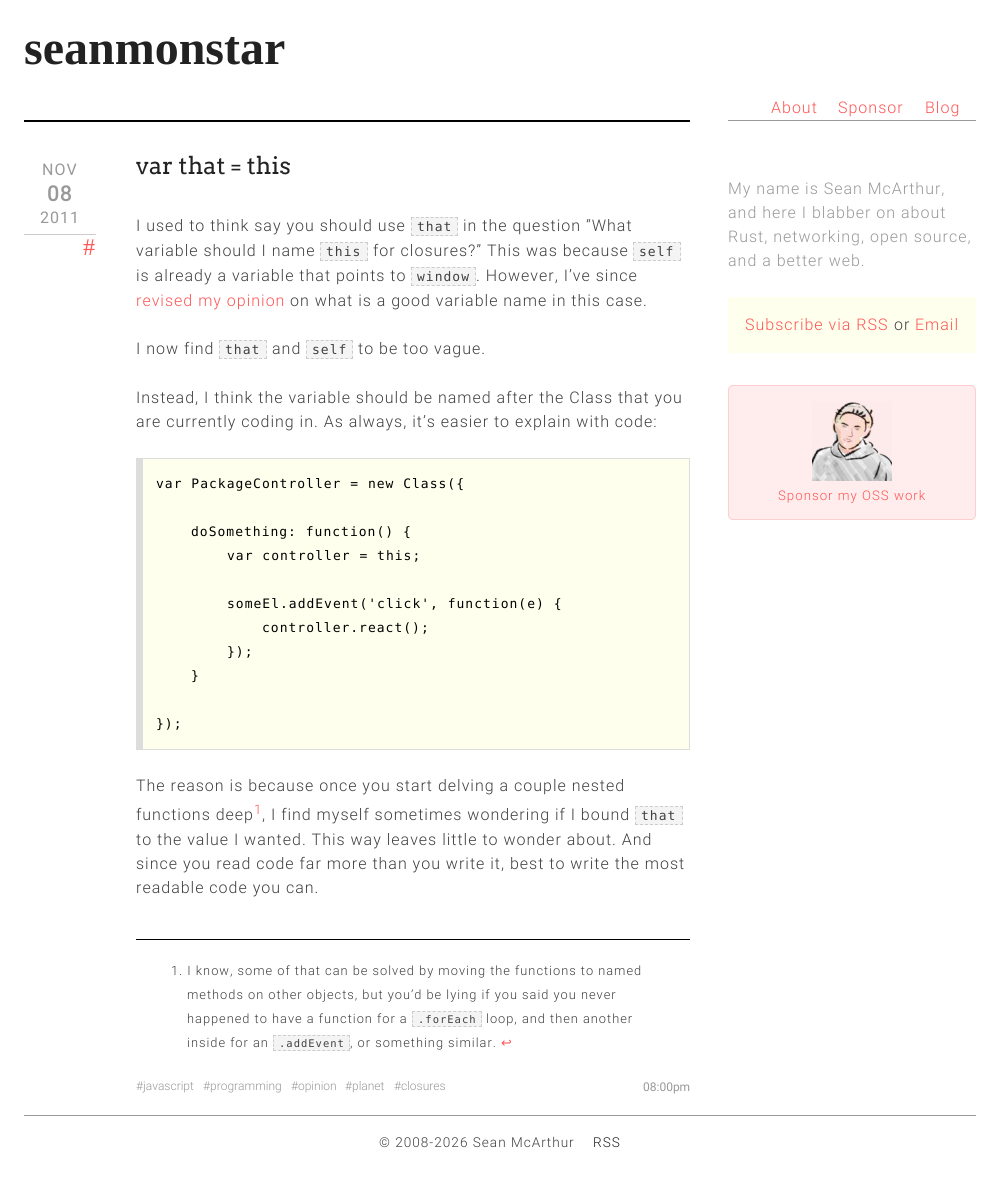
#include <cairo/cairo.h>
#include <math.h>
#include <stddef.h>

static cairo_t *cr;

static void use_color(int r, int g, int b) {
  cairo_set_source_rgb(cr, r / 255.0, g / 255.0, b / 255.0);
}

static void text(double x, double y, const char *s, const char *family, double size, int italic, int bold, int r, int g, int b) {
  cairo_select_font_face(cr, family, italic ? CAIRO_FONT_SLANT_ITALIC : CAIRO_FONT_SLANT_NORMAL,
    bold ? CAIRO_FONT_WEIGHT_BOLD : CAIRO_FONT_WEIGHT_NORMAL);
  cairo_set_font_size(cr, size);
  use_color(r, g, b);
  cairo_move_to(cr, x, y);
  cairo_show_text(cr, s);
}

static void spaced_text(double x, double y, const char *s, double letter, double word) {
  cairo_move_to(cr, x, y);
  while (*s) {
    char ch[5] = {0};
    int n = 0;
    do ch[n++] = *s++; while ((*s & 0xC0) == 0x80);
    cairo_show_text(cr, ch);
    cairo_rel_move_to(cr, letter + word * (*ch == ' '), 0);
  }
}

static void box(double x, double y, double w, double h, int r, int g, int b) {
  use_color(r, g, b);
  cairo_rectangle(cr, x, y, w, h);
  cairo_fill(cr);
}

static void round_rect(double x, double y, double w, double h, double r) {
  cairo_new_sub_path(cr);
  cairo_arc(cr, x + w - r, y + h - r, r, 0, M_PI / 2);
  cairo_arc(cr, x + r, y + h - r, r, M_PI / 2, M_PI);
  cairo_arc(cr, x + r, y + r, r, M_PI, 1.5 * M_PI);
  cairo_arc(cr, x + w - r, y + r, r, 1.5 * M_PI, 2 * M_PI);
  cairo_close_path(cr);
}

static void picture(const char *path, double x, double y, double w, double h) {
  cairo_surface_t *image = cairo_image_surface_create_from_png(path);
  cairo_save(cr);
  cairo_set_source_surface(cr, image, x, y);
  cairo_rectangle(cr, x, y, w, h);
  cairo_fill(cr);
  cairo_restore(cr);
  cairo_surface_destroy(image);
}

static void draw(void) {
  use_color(255, 255, 255);
  cairo_paint(cr);
  box(24, 120, 666, 2, 0, 0, 0);
  box(24, 234, 72, 1, 204, 204, 204);
  box(411, 217, 47, 19, 244, 244, 244);
  cairo_new_path(cr);
  cairo_move_to(cr, 411, 217.5);
  cairo_line_to(cr, 458, 217.5);
  use_color(204, 204, 204);
  cairo_set_line_width(cr, 1);
  cairo_set_dash(cr, (double[]){3, 1.89}, 2, 0);
  cairo_stroke(cr);
  cairo_new_path(cr);
  cairo_move_to(cr, 457.5, 217);
  cairo_line_to(cr, 457.5, 236);
  cairo_set_dash(cr, (double[]){3, 2.33}, 2, 0);
  cairo_stroke(cr);
  cairo_new_path(cr);
  cairo_move_to(cr, 411, 235.5);
  cairo_line_to(cr, 458, 235.5);
  cairo_set_dash(cr, (double[]){3, 1.89}, 2, 0);
  cairo_stroke(cr);
  cairo_new_path(cr);
  cairo_move_to(cr, 411.5, 217);
  cairo_line_to(cr, 411.5, 236);
  cairo_set_dash(cr, (double[]){3, 2.33}, 2, 0);
  cairo_stroke(cr);
  box(320, 242, 48, 19, 244, 244, 244);
  cairo_new_path(cr);
  cairo_move_to(cr, 320, 242.5);
  cairo_line_to(cr, 368, 242.5);
  use_color(204, 204, 204);
  cairo_set_dash(cr, (double[]){3, 2}, 2, 0);
  cairo_stroke(cr);
  cairo_new_path(cr);
  cairo_move_to(cr, 367.5, 242);
  cairo_line_to(cr, 367.5, 261);
  cairo_set_dash(cr, (double[]){3, 2.33}, 2, 0);
  cairo_stroke(cr);
  cairo_new_path(cr);
  cairo_move_to(cr, 320, 260.5);
  cairo_line_to(cr, 368, 260.5);
  cairo_set_dash(cr, (double[]){3, 2}, 2, 0);
  cairo_stroke(cr);
  cairo_new_path(cr);
  cairo_move_to(cr, 320.5, 242);
  cairo_line_to(cr, 320.5, 261);
  cairo_set_dash(cr, (double[]){3, 2.33}, 2, 0);
  cairo_stroke(cr);
  box(633, 242, 48, 19, 244, 244, 244);
  cairo_new_path(cr);
  cairo_move_to(cr, 633, 242.5);
  cairo_line_to(cr, 681, 242.5);
  use_color(204, 204, 204);
  cairo_set_dash(cr, (double[]){3, 2}, 2, 0);
  cairo_stroke(cr);
  cairo_new_path(cr);
  cairo_move_to(cr, 680.5, 242);
  cairo_line_to(cr, 680.5, 261);
  cairo_set_dash(cr, (double[]){3, 2.33}, 2, 0);
  cairo_stroke(cr);
  cairo_new_path(cr);
  cairo_move_to(cr, 633, 260.5);
  cairo_line_to(cr, 681, 260.5);
  cairo_set_dash(cr, (double[]){3, 2}, 2, 0);
  cairo_stroke(cr);
  cairo_new_path(cr);
  cairo_move_to(cr, 633.5, 242);
  cairo_line_to(cr, 633.5, 261);
  cairo_set_dash(cr, (double[]){3, 2.33}, 2, 0);
  cairo_stroke(cr);
  box(411, 267, 65, 19, 244, 244, 244);
  cairo_new_path(cr);
  cairo_move_to(cr, 411, 267.5);
  cairo_line_to(cr, 476, 267.5);
  use_color(204, 204, 204);
  cairo_set_dash(cr, (double[]){3, 2.17}, 2, 0);
  cairo_stroke(cr);
  cairo_new_path(cr);
  cairo_move_to(cr, 475.5, 267);
  cairo_line_to(cr, 475.5, 286);
  cairo_set_dash(cr, (double[]){3, 2.33}, 2, 0);
  cairo_stroke(cr);
  cairo_new_path(cr);
  cairo_move_to(cr, 411, 285.5);
  cairo_line_to(cr, 476, 285.5);
  cairo_set_dash(cr, (double[]){3, 2.17}, 2, 0);
  cairo_stroke(cr);
  cairo_new_path(cr);
  cairo_move_to(cr, 411.5, 267);
  cairo_line_to(cr, 411.5, 286);
  cairo_set_dash(cr, (double[]){3, 2.33}, 2, 0);
  cairo_stroke(cr);
  box(219, 340, 48, 19, 244, 244, 244);
  cairo_new_path(cr);
  cairo_move_to(cr, 219, 340.5);
  cairo_line_to(cr, 267, 340.5);
  use_color(204, 204, 204);
  cairo_set_dash(cr, (double[]){3, 2}, 2, 0);
  cairo_stroke(cr);
  cairo_new_path(cr);
  cairo_move_to(cr, 266.5, 340);
  cairo_line_to(cr, 266.5, 359);
  cairo_set_dash(cr, (double[]){3, 2.33}, 2, 0);
  cairo_stroke(cr);
  cairo_new_path(cr);
  cairo_move_to(cr, 219, 358.5);
  cairo_line_to(cr, 267, 358.5);
  cairo_set_dash(cr, (double[]){3, 2}, 2, 0);
  cairo_stroke(cr);
  cairo_new_path(cr);
  cairo_move_to(cr, 219.5, 340);
  cairo_line_to(cr, 219.5, 359);
  cairo_set_dash(cr, (double[]){3, 2.33}, 2, 0);
  cairo_stroke(cr);
  box(306, 340, 47, 19, 244, 244, 244);
  cairo_new_path(cr);
  cairo_move_to(cr, 306, 340.5);
  cairo_line_to(cr, 353, 340.5);
  use_color(204, 204, 204);
  cairo_set_dash(cr, (double[]){3, 1.89}, 2, 0);
  cairo_stroke(cr);
  cairo_new_path(cr);
  cairo_move_to(cr, 352.5, 340);
  cairo_line_to(cr, 352.5, 359);
  cairo_set_dash(cr, (double[]){3, 2.33}, 2, 0);
  cairo_stroke(cr);
  cairo_new_path(cr);
  cairo_move_to(cr, 306, 358.5);
  cairo_line_to(cr, 353, 358.5);
  cairo_set_dash(cr, (double[]){3, 1.89}, 2, 0);
  cairo_stroke(cr);
  cairo_new_path(cr);
  cairo_move_to(cr, 306.5, 340);
  cairo_line_to(cr, 306.5, 359);
  cairo_set_dash(cr, (double[]){3, 2.33}, 2, 0);
  cairo_stroke(cr);
  box(143, 459, 546, 290, 255, 255, 238);
  box(136, 458, 554, 1, 221, 221, 221);
  box(689, 458, 1, 292, 221, 221, 221);
  box(136, 749, 554, 1, 221, 221, 221);
  box(136, 458, 7, 292, 221, 221, 221);
  box(635, 806, 48, 19, 244, 244, 244);
  cairo_new_path(cr);
  cairo_move_to(cr, 635, 806.5);
  cairo_line_to(cr, 683, 806.5);
  use_color(204, 204, 204);
  cairo_set_dash(cr, (double[]){3, 2}, 2, 0);
  cairo_stroke(cr);
  cairo_new_path(cr);
  cairo_move_to(cr, 682.5, 806);
  cairo_line_to(cr, 682.5, 825);
  cairo_set_dash(cr, (double[]){3, 2.33}, 2, 0);
  cairo_stroke(cr);
  cairo_new_path(cr);
  cairo_move_to(cr, 635, 824.5);
  cairo_line_to(cr, 683, 824.5);
  cairo_set_dash(cr, (double[]){3, 2}, 2, 0);
  cairo_stroke(cr);
  cairo_new_path(cr);
  cairo_move_to(cr, 635.5, 806);
  cairo_line_to(cr, 635.5, 825);
  cairo_set_dash(cr, (double[]){3, 2.33}, 2, 0);
  cairo_stroke(cr);
  box(136, 939, 554, 1, 0, 0, 0);
  box(412, 1011, 70, 16, 244, 244, 244);
  cairo_new_path(cr);
  cairo_move_to(cr, 412, 1011.5);
  cairo_line_to(cr, 482, 1011.5);
  use_color(204, 204, 204);
  cairo_set_dash(cr, (double[]){3, 2.15}, 2, 0);
  cairo_stroke(cr);
  cairo_new_path(cr);
  cairo_move_to(cr, 481.5, 1011);
  cairo_line_to(cr, 481.5, 1027);
  cairo_set_dash(cr, (double[]){3, 1.33}, 2, 0);
  cairo_stroke(cr);
  cairo_new_path(cr);
  cairo_move_to(cr, 412, 1026.5);
  cairo_line_to(cr, 482, 1026.5);
  cairo_set_dash(cr, (double[]){3, 2.15}, 2, 0);
  cairo_stroke(cr);
  cairo_new_path(cr);
  cairo_move_to(cr, 412.5, 1011);
  cairo_line_to(cr, 412.5, 1027);
  cairo_set_dash(cr, (double[]){3, 1.33}, 2, 0);
  cairo_stroke(cr);
  box(273, 1035, 77, 16, 244, 244, 244);
  cairo_new_path(cr);
  cairo_move_to(cr, 273, 1035.5);
  cairo_line_to(cr, 350, 1035.5);
  use_color(204, 204, 204);
  cairo_set_dash(cr, (double[]){3, 1.93}, 2, 0);
  cairo_stroke(cr);
  cairo_new_path(cr);
  cairo_move_to(cr, 349.5, 1035);
  cairo_line_to(cr, 349.5, 1051);
  cairo_set_dash(cr, (double[]){3, 1.33}, 2, 0);
  cairo_stroke(cr);
  cairo_new_path(cr);
  cairo_move_to(cr, 273, 1050.5);
  cairo_line_to(cr, 350, 1050.5);
  cairo_set_dash(cr, (double[]){3, 1.93}, 2, 0);
  cairo_stroke(cr);
  cairo_new_path(cr);
  cairo_move_to(cr, 273.5, 1035);
  cairo_line_to(cr, 273.5, 1051);
  cairo_set_dash(cr, (double[]){3, 1.33}, 2, 0);
  cairo_stroke(cr);
  box(728, 120, 248, 1, 153, 153, 153);
  box(728, 297, 248, 56, 255, 255, 238);
  use_color(255, 236, 236);
  round_rect(728.5, 385.5, 247, 134, 4.5);
  cairo_fill_preserve(cr);
  use_color(255, 206, 206);
  cairo_set_dash(cr, NULL, 0, 0);
  cairo_stroke(cr);
  picture("img_01.png", 812, 401, 80, 80);
  box(24, 1115, 952, 1, 153, 153, 153);
  text(24, 64, "seanmonstar", "Liberation Serif", 48, 0, 1, 34, 34, 34);
  cairo_select_font_face(cr, "Roboto Light", CAIRO_FONT_SLANT_NORMAL, CAIRO_FONT_WEIGHT_NORMAL);
  cairo_set_font_size(cr, 16);
  use_color(255, 85, 85);
  spaced_text(771, 113, "About", 1, 0);
  spaced_text(838, 113, "Sponsor", 1, 0);
  spaced_text(925, 113, "Blog", 1, 0);
  cairo_select_font_face(cr, "Roboto", CAIRO_FONT_SLANT_NORMAL, CAIRO_FONT_WEIGHT_NORMAL);
  use_color(153, 153, 153);
  spaced_text(42, 175, "NOV", 1, 0);
  cairo_select_font_face(cr, "Roboto", CAIRO_FONT_SLANT_NORMAL, CAIRO_FONT_WEIGHT_BOLD);
  cairo_set_font_size(cr, 21);
  spaced_text(47, 201, "08", 1, 0);
  cairo_select_font_face(cr, "Roboto", CAIRO_FONT_SLANT_NORMAL, CAIRO_FONT_WEIGHT_NORMAL);
  cairo_set_font_size(cr, 16);
  spaced_text(40, 223, "2011", 1, 0);
  cairo_select_font_face(cr, "Liberation Serif", CAIRO_FONT_SLANT_NORMAL, CAIRO_FONT_WEIGHT_NORMAL);
  cairo_set_font_size(cr, 24);
  use_color(255, 85, 85);
  spaced_text(83, 255, "#", 1, 0);
  text(136, 174, "var that = this", "Arvo", 24, 0, 0, 34, 34, 34);
  cairo_select_font_face(cr, "Roboto Light", CAIRO_FONT_SLANT_NORMAL, CAIRO_FONT_WEIGHT_NORMAL);
  cairo_set_font_size(cr, 16);
  use_color(64, 64, 64);
  spaced_text(136, 231, "I used to think say you should use", 1, 0);
  cairo_select_font_face(cr, "DejaVu Sans Mono", CAIRO_FONT_SLANT_NORMAL, CAIRO_FONT_WEIGHT_NORMAL);
  cairo_set_font_size(cr, 13);
  spaced_text(417, 231, "that", 1, 0);
  cairo_select_font_face(cr, "Roboto Light", CAIRO_FONT_SLANT_NORMAL, CAIRO_FONT_WEIGHT_NORMAL);
  cairo_set_font_size(cr, 16);
  spaced_text(463, 231, "in the question “What", 1, 0);
  spaced_text(136, 256, "variable should I name", 1, 0);
  cairo_select_font_face(cr, "DejaVu Sans Mono", CAIRO_FONT_SLANT_NORMAL, CAIRO_FONT_WEIGHT_NORMAL);
  cairo_set_font_size(cr, 13);
  spaced_text(326, 256, "this", 1, 0);
  cairo_select_font_face(cr, "Roboto Light", CAIRO_FONT_SLANT_NORMAL, CAIRO_FONT_WEIGHT_NORMAL);
  cairo_set_font_size(cr, 16);
  spaced_text(373, 256, "for closures?” This was because", 1, 0);
  cairo_select_font_face(cr, "DejaVu Sans Mono", CAIRO_FONT_SLANT_NORMAL, CAIRO_FONT_WEIGHT_NORMAL);
  cairo_set_font_size(cr, 13);
  spaced_text(639, 256, "self", 1, 0);
  cairo_select_font_face(cr, "Roboto Light", CAIRO_FONT_SLANT_NORMAL, CAIRO_FONT_WEIGHT_NORMAL);
  cairo_set_font_size(cr, 16);
  spaced_text(136, 281, "is already a variable that points to", 1, 0);
  cairo_select_font_face(cr, "DejaVu Sans Mono", CAIRO_FONT_SLANT_NORMAL, CAIRO_FONT_WEIGHT_NORMAL);
  cairo_set_font_size(cr, 13);
  spaced_text(417, 281, "window", 1, 0);
  cairo_select_font_face(cr, "Roboto Light", CAIRO_FONT_SLANT_NORMAL, CAIRO_FONT_WEIGHT_NORMAL);
  cairo_set_font_size(cr, 16);
  spaced_text(476, 281, ". However, I’ve since", 1, 0);
  use_color(255, 85, 85);
  spaced_text(136, 306, "revised my opinion", 1, 0);
  use_color(64, 64, 64);
  spaced_text(290, 306, "on what is a good variable name in this case.", 1, 0);
  spaced_text(136, 354, "I now find", 1, 0);
  cairo_select_font_face(cr, "DejaVu Sans Mono", CAIRO_FONT_SLANT_NORMAL, CAIRO_FONT_WEIGHT_NORMAL);
  cairo_set_font_size(cr, 13);
  spaced_text(225, 354, "that", 1, 0);
  cairo_select_font_face(cr, "Roboto Light", CAIRO_FONT_SLANT_NORMAL, CAIRO_FONT_WEIGHT_NORMAL);
  cairo_set_font_size(cr, 16);
  spaced_text(272, 354, "and", 1, 0);
  cairo_select_font_face(cr, "DejaVu Sans Mono", CAIRO_FONT_SLANT_NORMAL, CAIRO_FONT_WEIGHT_NORMAL);
  cairo_set_font_size(cr, 13);
  spaced_text(312, 354, "self", 1, 0);
  cairo_select_font_face(cr, "Roboto Light", CAIRO_FONT_SLANT_NORMAL, CAIRO_FONT_WEIGHT_NORMAL);
  cairo_set_font_size(cr, 16);
  spaced_text(358, 354, "to be too vague.", 1, 0);
  spaced_text(136, 403, "Instead, I think the variable should be named after the Class that you", 1, 0);
  spaced_text(136, 427, "are currently coding in. As always, it’s easier to explain with code:", 1, 0);
  cairo_select_font_face(cr, "DejaVu Sans Mono", CAIRO_FONT_SLANT_NORMAL, CAIRO_FONT_WEIGHT_NORMAL);
  cairo_set_font_size(cr, 13);
  use_color(0, 0, 0);
  spaced_text(156, 488, "var PackageController = new Class({", 1, 0);
  spaced_text(191, 536, "doSomething: function() {", 1, 0);
  spaced_text(227, 560, "var controller = this;", 1, 0);
  spaced_text(227, 608, "someEl.addEvent('click', function(e) {", 1, 0);
  spaced_text(262, 632, "controller.react();", 1, 0);
  spaced_text(227, 656, "});", 1, 0);
  spaced_text(191, 680, "}", 1, 0);
  spaced_text(156, 728, "});", 1, 0);
  cairo_select_font_face(cr, "Roboto Light", CAIRO_FONT_SLANT_NORMAL, CAIRO_FONT_WEIGHT_NORMAL);
  cairo_set_font_size(cr, 16);
  use_color(64, 64, 64);
  spaced_text(136, 791, "The reason is because once you start delving a couple nested", 1, 0);
  spaced_text(136, 820, "functions deep", 1, 0);
  cairo_set_font_size(cr, 13.25);
  use_color(255, 85, 85);
  spaced_text(254, 814, "1", 1, 0);
  cairo_set_font_size(cr, 16);
  use_color(64, 64, 64);
  spaced_text(262, 820, ", I find myself sometimes wondering if I bound", 1, 0);
  cairo_select_font_face(cr, "DejaVu Sans Mono", CAIRO_FONT_SLANT_NORMAL, CAIRO_FONT_WEIGHT_NORMAL);
  cairo_set_font_size(cr, 13);
  spaced_text(641, 820, "that", 1, 0);
  cairo_select_font_face(cr, "Roboto Light", CAIRO_FONT_SLANT_NORMAL, CAIRO_FONT_WEIGHT_NORMAL);
  cairo_set_font_size(cr, 16);
  spaced_text(136, 845, "to the value I wanted. This way leaves little to wonder about. And", 1, 0);
  spaced_text(136, 869, "since you read code far more than you write it, best to write the most", 1, 0);
  spaced_text(136, 893, "readable code you can.", 1, 0);
  cairo_set_font_size(cr, 12.8);
  spaced_text(171, 975, "1. I know, some of that can be solved by moving the functions to named", 1, 0);
  spaced_text(187, 999, "methods on other objects, but you’d be lying if you said you never", 1, 0);
  spaced_text(187, 1023, "happened to have a function for a", 1, 0);
  cairo_select_font_face(cr, "DejaVu Sans Mono", CAIRO_FONT_SLANT_NORMAL, CAIRO_FONT_WEIGHT_NORMAL);
  cairo_set_font_size(cr, 10.5);
  spaced_text(418, 1023, ".forEach", 1, 0);
  cairo_select_font_face(cr, "Roboto Light", CAIRO_FONT_SLANT_NORMAL, CAIRO_FONT_WEIGHT_NORMAL);
  cairo_set_font_size(cr, 12.8);
  spaced_text(486, 1023, "loop, and then another", 1, 0);
  spaced_text(187, 1047, "inside for an", 1, 0);
  cairo_select_font_face(cr, "DejaVu Sans Mono", CAIRO_FONT_SLANT_NORMAL, CAIRO_FONT_WEIGHT_NORMAL);
  cairo_set_font_size(cr, 10.5);
  spaced_text(279, 1047, ".addEvent", 1, 0);
  cairo_select_font_face(cr, "Roboto Light", CAIRO_FONT_SLANT_NORMAL, CAIRO_FONT_WEIGHT_NORMAL);
  cairo_set_font_size(cr, 12.8);
  spaced_text(350, 1047, ", or something similar.", 1, 0);
  cairo_select_font_face(cr, "DejaVu Sans", CAIRO_FONT_SLANT_NORMAL, CAIRO_FONT_WEIGHT_NORMAL);
  use_color(255, 85, 85);
  spaced_text(501, 1047, "↩", 1, 0);
  text(136, 1090, "#javascript", "Roboto Light", 12, 0, 0, 153, 153, 153);
  text(203, 1090, "#programming", "Roboto Light", 12, 0, 0, 153, 153, 153);
  text(291, 1090, "#opinion", "Roboto Light", 12, 0, 0, 153, 153, 153);
  text(345, 1090, "#planet", "Roboto Light", 12, 0, 0, 153, 153, 153);
  text(394, 1090, "#closures", "Roboto Light", 12, 0, 0, 153, 153, 153);
  text(643, 1091, "08:00pm", "Roboto", 12, 0, 0, 153, 153, 153);
  cairo_select_font_face(cr, "Roboto Light", CAIRO_FONT_SLANT_NORMAL, CAIRO_FONT_WEIGHT_NORMAL);
  cairo_set_font_size(cr, 16);
  spaced_text(728, 194, "My name is Sean McArthur,", 1, 0);
  spaced_text(728, 218, "and here I blabber on about", 1, 0);
  spaced_text(728, 242, "Rust, networking, open source,", 1, 0);
  spaced_text(728, 266, "and a better web.", 1, 0);
  use_color(255, 85, 85);
  spaced_text(745, 330, "Subscribe via RSS", 1, 0);
  use_color(64, 64, 64);
  spaced_text(894, 330, "or", 1, 0);
  use_color(255, 85, 85);
  spaced_text(915, 330, "Email", 1, 0);
  cairo_set_font_size(cr, 13.25);
  spaced_text(778, 500, "Sponsor my OSS work", 1, 0);
  cairo_set_font_size(cr, 13.6);
  use_color(64, 64, 64);
  spaced_text(379, 1147, "© 2008-2026 Sean McArthur", 1, 0);
  use_color(34, 34, 34);
  spaced_text(593, 1147, "RSS", 1, 0);
}

int main(void) {
  cairo_surface_t *surface = cairo_image_surface_create(CAIRO_FORMAT_RGB24, 1000, 1185);
  cr = cairo_create(surface);
  cairo_font_options_t *options = cairo_font_options_create();
  cairo_font_options_set_hint_metrics(options, CAIRO_HINT_METRICS_OFF);
  cairo_font_options_set_hint_style(options, CAIRO_HINT_STYLE_NONE);
  cairo_set_font_options(cr, options);
  cairo_set_miter_limit(cr, 4);
  draw();
  cairo_surface_write_to_png(surface, "out.png");
  cairo_font_options_destroy(options);
  cairo_destroy(cr);
  cairo_surface_destroy(surface);
  return 0;
}
